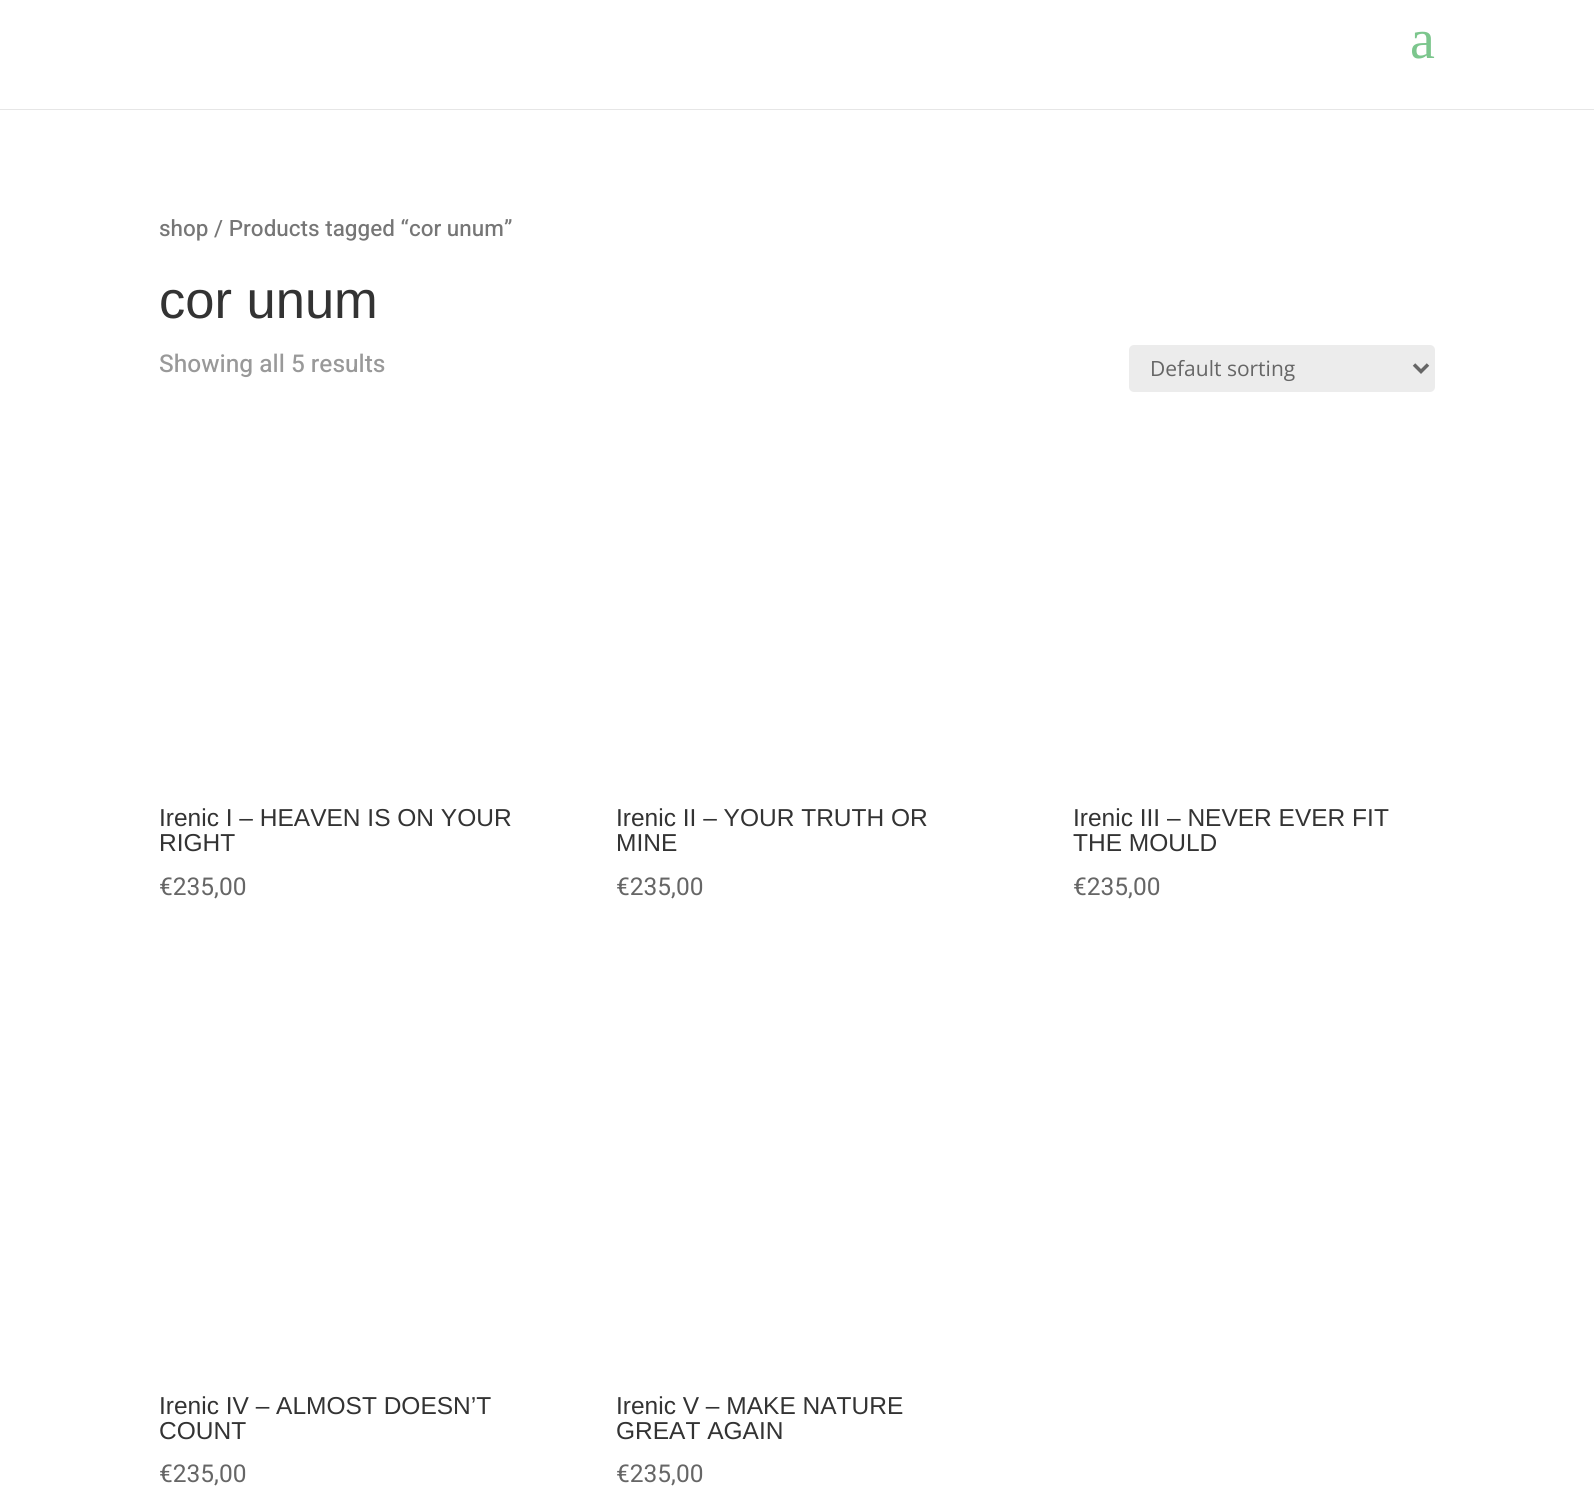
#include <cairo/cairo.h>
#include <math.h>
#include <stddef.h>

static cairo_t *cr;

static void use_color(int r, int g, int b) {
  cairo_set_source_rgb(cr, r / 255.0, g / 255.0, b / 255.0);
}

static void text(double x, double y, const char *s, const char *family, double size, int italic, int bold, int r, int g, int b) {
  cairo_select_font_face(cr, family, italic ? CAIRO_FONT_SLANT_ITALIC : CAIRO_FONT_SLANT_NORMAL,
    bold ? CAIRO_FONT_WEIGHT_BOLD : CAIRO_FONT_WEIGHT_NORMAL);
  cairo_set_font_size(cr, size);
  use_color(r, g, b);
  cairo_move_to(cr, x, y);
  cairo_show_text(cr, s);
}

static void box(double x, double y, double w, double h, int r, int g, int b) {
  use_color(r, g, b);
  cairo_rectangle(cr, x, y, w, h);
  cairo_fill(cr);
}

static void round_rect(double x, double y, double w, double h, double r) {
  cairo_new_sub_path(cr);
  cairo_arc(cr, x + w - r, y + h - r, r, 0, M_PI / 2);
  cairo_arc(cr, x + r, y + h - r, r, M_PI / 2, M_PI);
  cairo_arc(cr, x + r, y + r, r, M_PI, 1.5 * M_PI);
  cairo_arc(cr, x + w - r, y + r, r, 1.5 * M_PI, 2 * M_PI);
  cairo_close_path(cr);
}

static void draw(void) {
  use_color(255, 255, 255);
  cairo_paint(cr);
  box(0, 109, 1594, 1, 230, 230, 230);
  use_color(236, 236, 236);
  round_rect(1129, 345, 306, 47, 5);
  cairo_fill(cr);
  cairo_new_path(cr);
  cairo_move_to(cr, 1414, 364.5);
  cairo_line_to(cr, 1421, 371.5);
  cairo_line_to(cr, 1428, 364.5);
  use_color(102, 102, 102);
  cairo_set_line_width(cr, 3.5);
  cairo_stroke(cr);
  text(1410, 58, "a", "Liberation Serif", 56, 0, 0, 124, 198, 141);
  text(159, 236, "shop / Products tagged “cor unum”", "Heebo Medium", 22.5, 0, 0, 118, 118, 118);
  text(159, 318, "cor unum", "Liberation Sans", 52.5, 0, 0, 51, 51, 51);
  text(159, 372, "Showing all 5 results", "Heebo Medium", 24.5, 0, 0, 153, 153, 153);
  text(1150, 376, "Default sorting", "Open Sans", 21, 0, 0, 102, 102, 102);
  text(159, 826, "Irenic I – HEAVEN IS ON YOUR", "Liberation Sans", 24.5, 0, 0, 51, 51, 51);
  text(159, 851, "RIGHT", "Liberation Sans", 24.5, 0, 0, 51, 51, 51);
  text(159, 895, "€235,00", "Heebo", 24.5, 0, 0, 102, 102, 102);
  text(616, 826, "Irenic II – YOUR TRUTH OR", "Liberation Sans", 24.5, 0, 0, 51, 51, 51);
  text(616, 851, "MINE", "Liberation Sans", 24.5, 0, 0, 51, 51, 51);
  text(616, 895, "€235,00", "Heebo", 24.5, 0, 0, 102, 102, 102);
  text(1073, 826, "Irenic III – NEVER EVER FIT", "Liberation Sans", 24.5, 0, 0, 51, 51, 51);
  text(1073, 851, "THE MOULD", "Liberation Sans", 24.5, 0, 0, 51, 51, 51);
  text(1073, 895, "€235,00", "Heebo", 24.5, 0, 0, 102, 102, 102);
  text(159, 1414, "Irenic IV – ALMOST DOESN’T", "Liberation Sans", 24.5, 0, 0, 51, 51, 51);
  text(159, 1439, "COUNT", "Liberation Sans", 24.5, 0, 0, 51, 51, 51);
  text(159, 1482, "€235,00", "Heebo", 24.5, 0, 0, 102, 102, 102);
  text(616, 1414, "Irenic V – MAKE NATURE", "Liberation Sans", 24.5, 0, 0, 51, 51, 51);
  text(616, 1439, "GREAT AGAIN", "Liberation Sans", 24.5, 0, 0, 51, 51, 51);
  text(616, 1482, "€235,00", "Heebo", 24.5, 0, 0, 102, 102, 102);
}

int main(void) {
  cairo_surface_t *surface = cairo_image_surface_create(CAIRO_FORMAT_RGB24, 1594, 1503);
  cr = cairo_create(surface);
  cairo_font_options_t *options = cairo_font_options_create();
  cairo_font_options_set_hint_metrics(options, CAIRO_HINT_METRICS_OFF);
  cairo_font_options_set_hint_style(options, CAIRO_HINT_STYLE_NONE);
  cairo_set_font_options(cr, options);
  cairo_set_miter_limit(cr, 4);
  draw();
  cairo_surface_write_to_png(surface, "out.png");
  cairo_font_options_destroy(options);
  cairo_destroy(cr);
  cairo_surface_destroy(surface);
  return 0;
}
